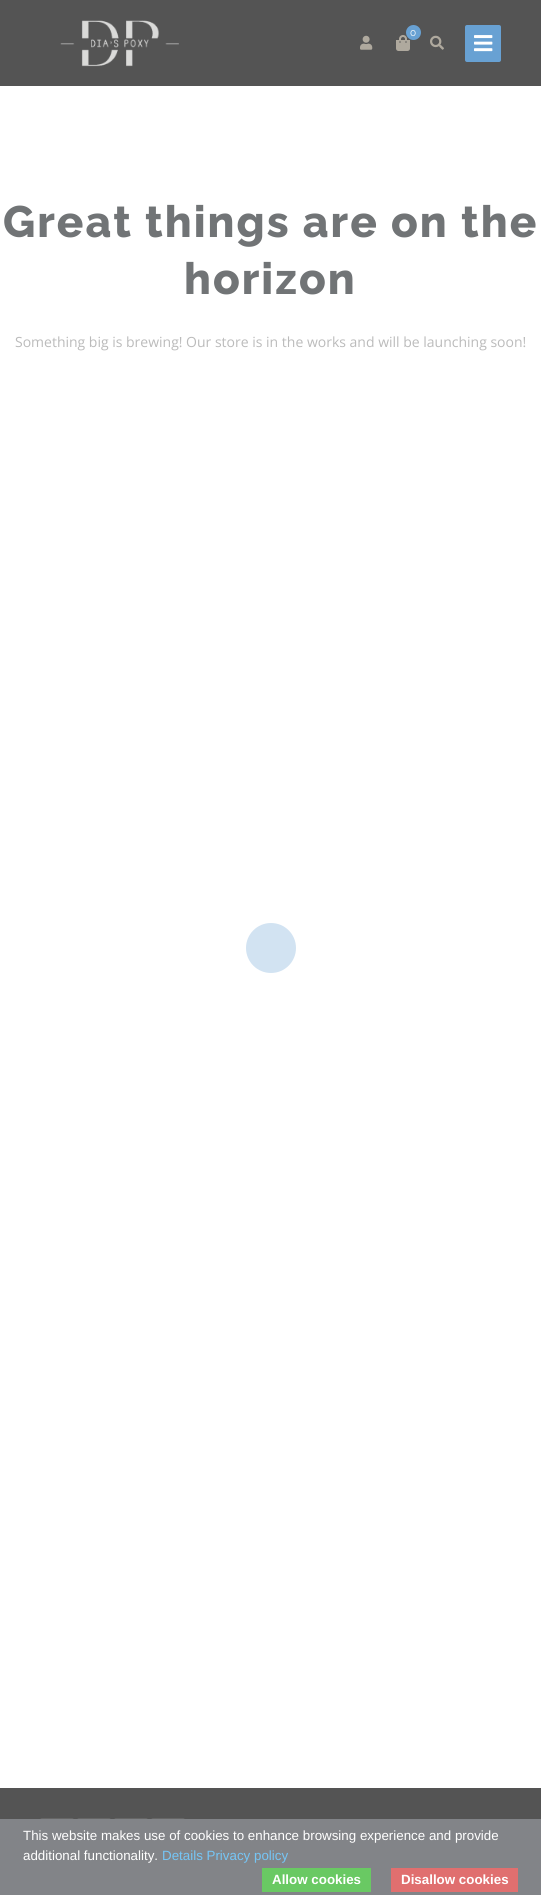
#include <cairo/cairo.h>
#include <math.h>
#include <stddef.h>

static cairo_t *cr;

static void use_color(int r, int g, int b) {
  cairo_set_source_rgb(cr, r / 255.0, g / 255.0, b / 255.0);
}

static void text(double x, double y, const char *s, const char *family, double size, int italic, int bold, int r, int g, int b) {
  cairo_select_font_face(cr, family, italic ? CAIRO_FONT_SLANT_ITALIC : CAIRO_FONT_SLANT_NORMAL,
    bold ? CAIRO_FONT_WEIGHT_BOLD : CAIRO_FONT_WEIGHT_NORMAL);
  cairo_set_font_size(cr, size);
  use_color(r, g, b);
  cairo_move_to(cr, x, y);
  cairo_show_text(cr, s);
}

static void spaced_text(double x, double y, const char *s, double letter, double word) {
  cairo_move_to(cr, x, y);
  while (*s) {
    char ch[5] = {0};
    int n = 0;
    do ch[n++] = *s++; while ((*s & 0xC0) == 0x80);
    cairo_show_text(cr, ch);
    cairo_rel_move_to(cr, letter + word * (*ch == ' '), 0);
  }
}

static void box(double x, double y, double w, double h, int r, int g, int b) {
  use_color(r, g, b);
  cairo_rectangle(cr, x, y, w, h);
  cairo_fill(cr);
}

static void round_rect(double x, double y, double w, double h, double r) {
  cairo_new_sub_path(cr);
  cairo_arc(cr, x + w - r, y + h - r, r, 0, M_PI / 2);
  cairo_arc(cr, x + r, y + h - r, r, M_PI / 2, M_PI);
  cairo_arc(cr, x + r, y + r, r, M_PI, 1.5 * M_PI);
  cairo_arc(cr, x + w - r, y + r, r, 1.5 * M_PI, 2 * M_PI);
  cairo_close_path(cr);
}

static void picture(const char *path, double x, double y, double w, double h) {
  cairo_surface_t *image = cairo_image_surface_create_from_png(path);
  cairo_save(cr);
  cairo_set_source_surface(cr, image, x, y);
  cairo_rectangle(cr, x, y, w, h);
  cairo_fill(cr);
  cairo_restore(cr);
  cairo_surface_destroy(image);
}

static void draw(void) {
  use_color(255, 255, 255);
  cairo_paint(cr);
  box(0, 0, 541, 86, 84, 84, 84);
  picture("img_01.png", 60, 20, 119, 47);
  picture("img_02.png", 396, 35, 14, 16);
  use_color(104, 161, 211);
  cairo_arc(cr, 413.5, 32.5, 7.5, 0, 2 * M_PI);
  cairo_fill(cr);
  picture("img_03.png", 360, 35, 13, 15);
  picture("img_04.png", 430, 35, 14, 15);
  round_rect(465, 25, 36, 37, 2);
  cairo_fill(cr);
  picture("img_05.png", 474, 35, 19, 17);
  box(0, 1788, 541, 31, 84, 84, 84);
  use_color(102, 102, 102);
  round_rect(40, 1818, 34, 34, 2);
  cairo_fill(cr);
  round_rect(77, 1818, 34, 34, 2);
  cairo_fill(cr);
  round_rect(114, 1818, 34, 34, 2);
  cairo_fill(cr);
  round_rect(151, 1818, 34, 34, 2);
  cairo_fill(cr);
  use_color(210, 227, 242);
  cairo_arc(cr, 271, 948, 25, 0, 2 * M_PI);
  cairo_fill(cr);
  box(0, 1819, 541, 76, 130, 132, 136);
  box(262, 1868, 109, 24, 105, 201, 99);
  box(391, 1868, 127, 24, 224, 111, 111);
  text(410, 36, "0", "Raleway", 10, 0, 0, 255, 255, 255);
  cairo_select_font_face(cr, "Raleway ExtraBold", CAIRO_FONT_SLANT_NORMAL, CAIRO_FONT_WEIGHT_NORMAL);
  cairo_set_font_size(cr, 44);
  use_color(113, 116, 118);
  spaced_text(3, 237, "Great things are on the", 2, 0);
  spaced_text(184, 294, "horizon", 2, 0);
  text(15, 347, "Something big is brewing! Our store is in the works and will be launching soon!", "Open Sans", 14, 0, 0, 187, 187, 187);
  text(23, 1840, "This website makes use of cookies to enhance browsing experience and provide", "Liberation Sans", 13.35, 0, 0, 255, 255, 255);
  text(23, 1860, "additional functionality.", "Liberation Sans", 13.35, 0, 0, 255, 255, 255);
  text(162, 1860, "Details Privacy policy", "Liberation Sans", 13.35, 0, 0, 117, 197, 245);
  text(272, 1884, "Allow cookies", "Liberation Sans", 13.35, 0, 1, 255, 255, 255);
  text(401, 1884, "Disallow cookies", "Liberation Sans", 13.35, 0, 1, 255, 255, 255);
}

int main(void) {
  cairo_surface_t *surface = cairo_image_surface_create(CAIRO_FORMAT_RGB24, 541, 1895);
  cr = cairo_create(surface);
  cairo_font_options_t *options = cairo_font_options_create();
  cairo_font_options_set_hint_metrics(options, CAIRO_HINT_METRICS_OFF);
  cairo_font_options_set_hint_style(options, CAIRO_HINT_STYLE_NONE);
  cairo_set_font_options(cr, options);
  cairo_set_miter_limit(cr, 4);
  draw();
  cairo_surface_write_to_png(surface, "out.png");
  cairo_font_options_destroy(options);
  cairo_destroy(cr);
  cairo_surface_destroy(surface);
  return 0;
}
